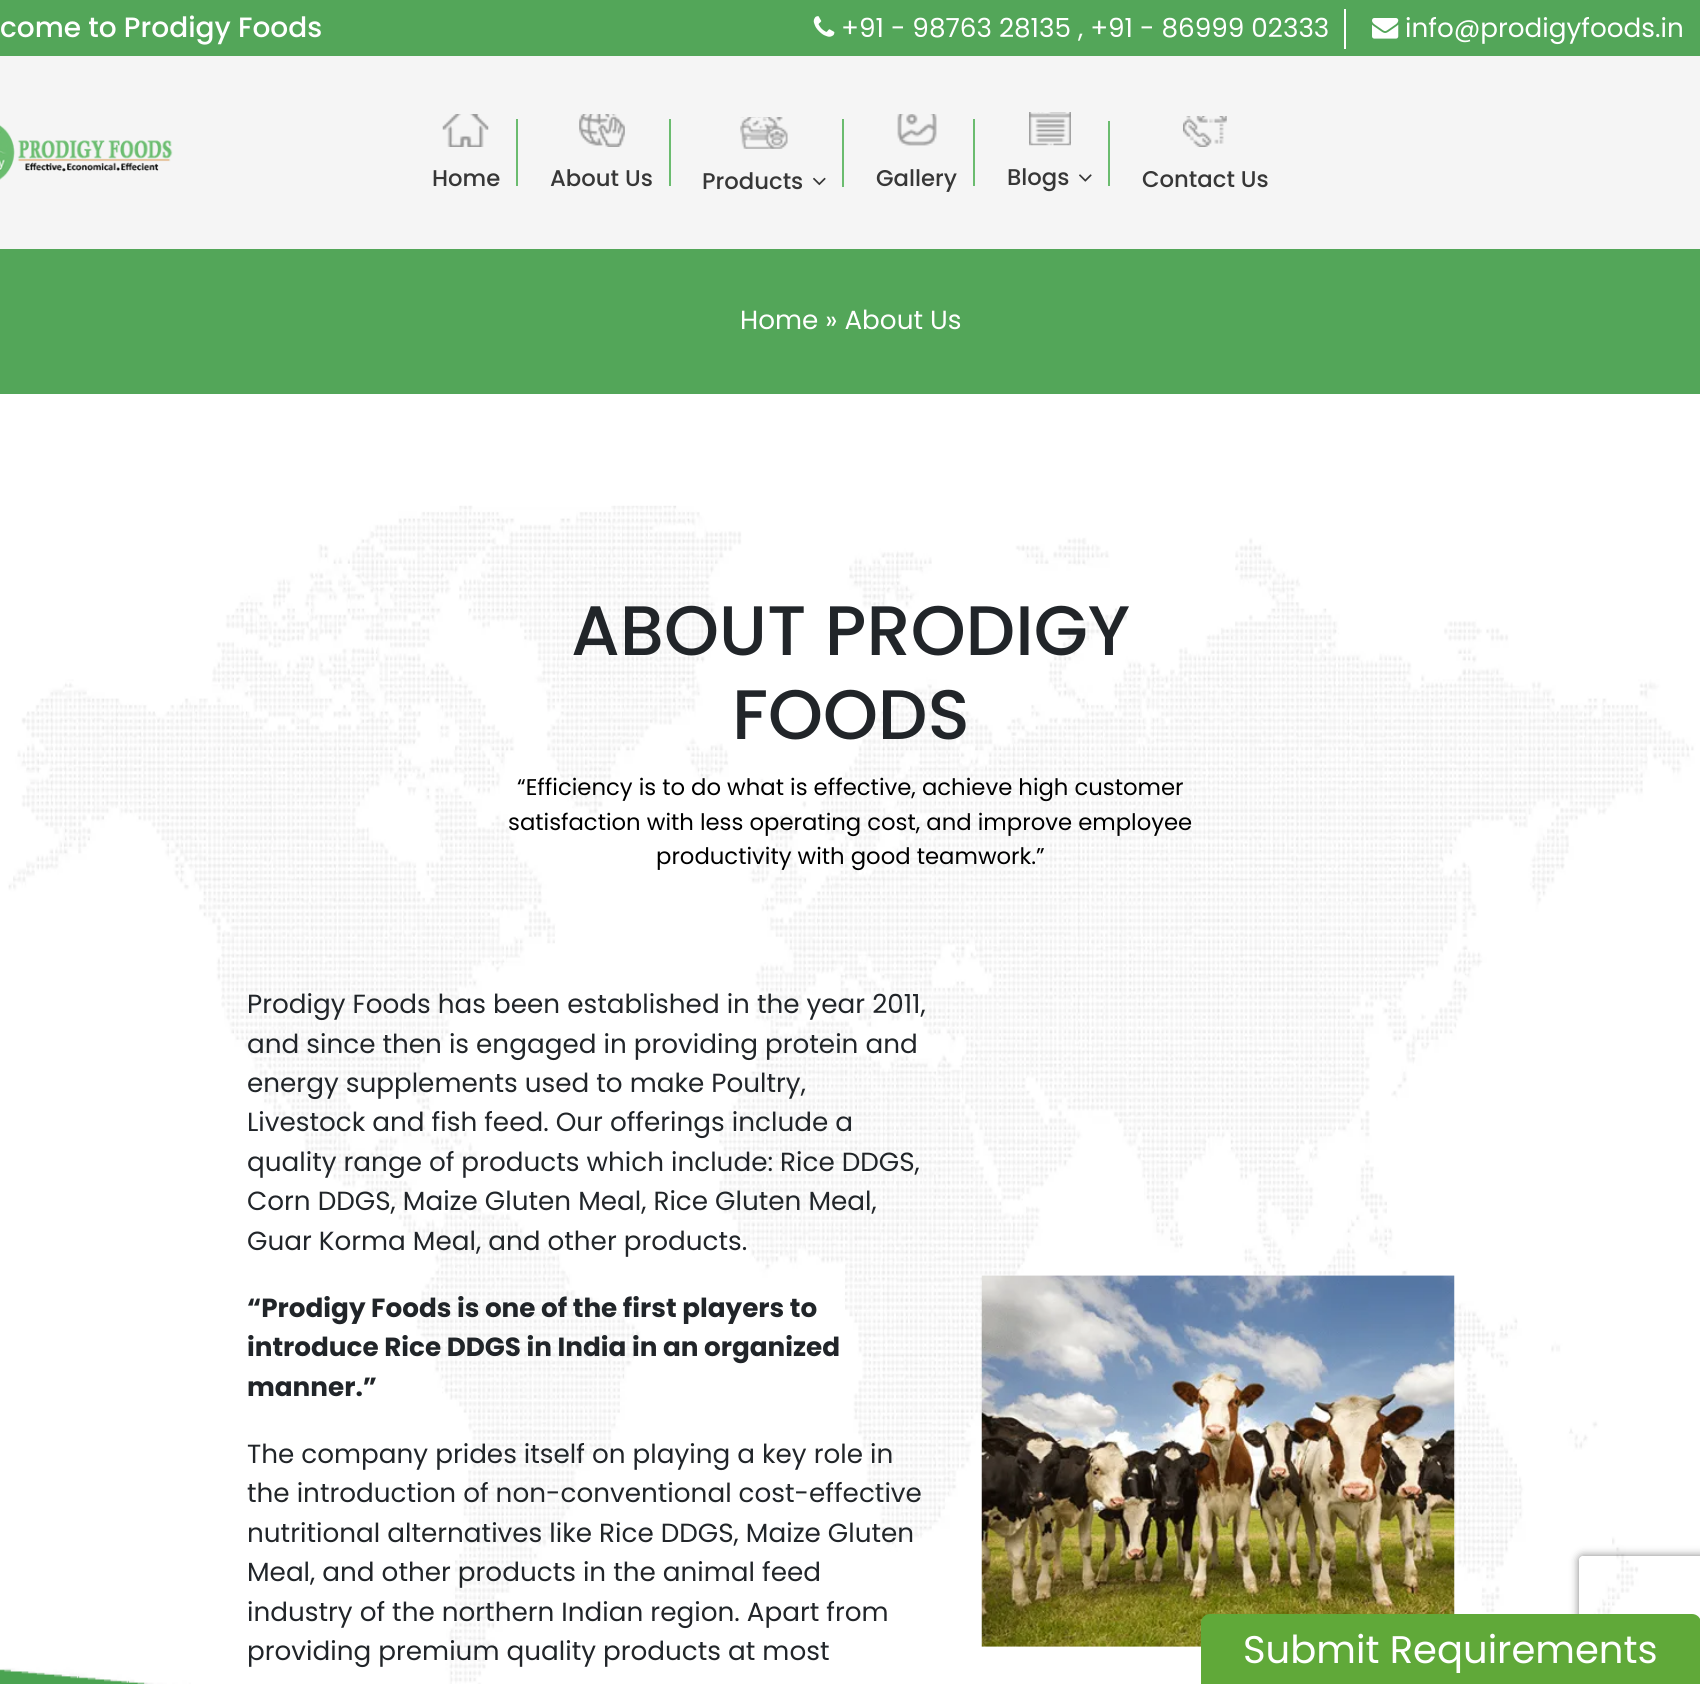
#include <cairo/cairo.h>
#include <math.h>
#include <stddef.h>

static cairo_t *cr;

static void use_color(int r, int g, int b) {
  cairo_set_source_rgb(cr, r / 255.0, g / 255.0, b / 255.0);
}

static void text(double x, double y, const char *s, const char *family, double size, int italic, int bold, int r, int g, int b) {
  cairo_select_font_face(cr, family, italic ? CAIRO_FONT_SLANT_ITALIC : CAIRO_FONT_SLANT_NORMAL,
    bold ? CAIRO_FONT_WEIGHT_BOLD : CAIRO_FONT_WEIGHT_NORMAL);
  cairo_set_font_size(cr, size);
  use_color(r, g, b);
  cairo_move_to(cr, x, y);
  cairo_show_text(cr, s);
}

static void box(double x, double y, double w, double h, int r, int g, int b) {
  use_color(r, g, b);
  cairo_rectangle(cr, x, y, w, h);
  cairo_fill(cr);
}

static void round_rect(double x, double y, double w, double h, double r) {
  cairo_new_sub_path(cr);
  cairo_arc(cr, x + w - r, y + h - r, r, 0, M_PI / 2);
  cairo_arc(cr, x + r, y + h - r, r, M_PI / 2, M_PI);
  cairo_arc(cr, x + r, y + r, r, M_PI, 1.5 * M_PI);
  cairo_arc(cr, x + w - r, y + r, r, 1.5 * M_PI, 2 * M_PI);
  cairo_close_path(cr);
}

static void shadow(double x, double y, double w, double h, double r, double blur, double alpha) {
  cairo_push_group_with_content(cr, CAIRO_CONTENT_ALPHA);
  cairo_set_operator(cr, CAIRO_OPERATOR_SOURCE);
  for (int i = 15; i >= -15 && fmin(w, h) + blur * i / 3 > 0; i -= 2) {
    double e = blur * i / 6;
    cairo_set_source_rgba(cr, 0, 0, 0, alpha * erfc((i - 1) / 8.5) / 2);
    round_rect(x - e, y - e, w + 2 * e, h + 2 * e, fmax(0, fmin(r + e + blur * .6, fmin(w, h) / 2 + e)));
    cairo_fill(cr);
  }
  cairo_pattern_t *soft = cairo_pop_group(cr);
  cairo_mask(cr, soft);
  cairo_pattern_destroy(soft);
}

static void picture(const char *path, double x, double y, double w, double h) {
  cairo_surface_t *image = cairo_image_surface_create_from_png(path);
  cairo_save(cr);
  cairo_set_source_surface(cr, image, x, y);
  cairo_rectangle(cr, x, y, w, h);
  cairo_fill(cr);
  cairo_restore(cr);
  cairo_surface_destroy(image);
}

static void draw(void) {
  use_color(255, 255, 255);
  cairo_paint(cr);
  box(0, 0, 1700, 56, 83, 166, 89);
  picture("img_01.png", 813, 16, 22, 21);
  box(1344, 9, 2, 40, 255, 255, 255);
  picture("img_02.png", 1372, 18, 27, 21);
  box(0, 56, 1700, 193, 245, 245, 245);
  picture("img_03.png", 0, 125, 173, 55);
  picture("img_04.png", 442, 114, 47, 33);
  box(516, 119, 2, 67, 107, 188, 111);
  picture("img_05.png", 579, 114, 46, 33);
  box(669, 119, 2, 67, 107, 188, 111);
  picture("img_06.png", 740, 117, 48, 32);
  box(842, 119, 2, 68, 107, 188, 111);
  picture("img_07.png", 813, 177, 13, 9);
  picture("img_08.png", 897, 114, 40, 32);
  box(973, 119, 2, 67, 107, 188, 111);
  picture("img_09.png", 1029, 112, 42, 34);
  box(1108, 121, 2, 65, 107, 188, 111);
  picture("img_10.png", 1079, 174, 13, 8);
  picture("img_11.png", 1183, 116, 44, 31);
  box(0, 249, 1700, 145, 83, 166, 89);
  box(0, 1669, 145, 15, 74, 163, 81);
  picture("img_12.png", 0, 505, 1700, 1179);
  picture("img_13.png", 981, 1275, 474, 372);
  cairo_save(cr);
  cairo_set_fill_rule(cr, CAIRO_FILL_RULE_EVEN_ODD);
  cairo_new_path(cr);
  cairo_move_to(cr, 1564, 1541);
  cairo_line_to(cr, 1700, 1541);
  cairo_line_to(cr, 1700, 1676);
  cairo_line_to(cr, 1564, 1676);
  cairo_close_path(cr);
  cairo_move_to(cr, 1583, 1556);
  cairo_line_to(cr, 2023, 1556);
  cairo_curve_to(cr, 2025, 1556, 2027, 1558, 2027, 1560);
  cairo_line_to(cr, 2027, 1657);
  cairo_curve_to(cr, 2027, 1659, 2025, 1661, 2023, 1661);
  cairo_line_to(cr, 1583, 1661);
  cairo_curve_to(cr, 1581, 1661, 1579, 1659, 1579, 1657);
  cairo_line_to(cr, 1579, 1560);
  cairo_curve_to(cr, 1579, 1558, 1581, 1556, 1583, 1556);
  cairo_close_path(cr);
  cairo_clip(cr);
  use_color(128, 128, 128);
  shadow(1579, 1556, 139, 105, 4, 4.5, 1);
  cairo_restore(cr);
  use_color(96, 169, 57);
  cairo_new_path(cr);
  cairo_move_to(cr, 1210, 1614);
  cairo_line_to(cr, 1692, 1614);
  cairo_curve_to(cr, 1697, 1614, 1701, 1618, 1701, 1623);
  cairo_line_to(cr, 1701, 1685);
  cairo_line_to(cr, 1201, 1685);
  cairo_line_to(cr, 1201, 1623);
  cairo_curve_to(cr, 1201, 1618, 1205, 1614, 1210, 1614);
  cairo_close_path(cr);
  cairo_fill(cr);
  text(0, 37, "come to Prodigy Foods", "Poppins Medium", 28, 0, 0, 255, 255, 255);
  text(841, 37, "+91 - 98763 28135 , +91 - 86999 02333", "Poppins", 26.25, 0, 0, 255, 255, 255);
  text(1405, 37, "info@prodigyfoods.in", "Poppins", 26.25, 0, 0, 255, 255, 255);
  text(432, 186, "Home", "Poppins Medium", 22.75, 0, 0, 55, 55, 55);
  text(550, 186, "About Us", "Poppins Medium", 22.75, 0, 0, 55, 55, 55);
  text(702, 189, "Products", "Poppins Medium", 22.75, 0, 0, 55, 55, 55);
  text(876, 186, "Gallery", "Poppins Medium", 22.75, 0, 0, 55, 55, 55);
  text(1007, 185, "Blogs", "Poppins Medium", 22.75, 0, 0, 55, 55, 55);
  text(1142, 187, "Contact Us", "Poppins Medium", 22.75, 0, 0, 55, 55, 55);
  text(740, 329, "Home » About Us", "Poppins", 26.25, 0, 0, 255, 255, 255);
  text(571, 655, "ABOUT PRODIGY", "Poppins Medium", 70, 0, 0, 33, 37, 41);
  text(732, 739, "FOODS", "Poppins Medium", 70, 0, 0, 33, 37, 41);
  text(517, 795, "“Efficiency is to do what is effective, achieve high customer", "Poppins", 22.75, 0, 0, 0, 0, 0);
  text(508, 830, "satisfaction with less operating cost, and improve employee", "Poppins", 22.75, 0, 0, 0, 0, 0);
  text(656, 864, "productivity with good teamwork.”", "Poppins", 22.75, 0, 0, 0, 0, 0);
  text(247, 1013, "Prodigy Foods has been established in the year 2011,", "Poppins", 26.25, 0, 0, 33, 37, 41);
  text(247, 1053, "and since then is engaged in providing protein and", "Poppins", 26.25, 0, 0, 33, 37, 41);
  text(247, 1092, "energy supplements used to make Poultry,", "Poppins", 26.25, 0, 0, 33, 37, 41);
  text(247, 1131, "Livestock and fish feed. Our offerings include a", "Poppins", 26.25, 0, 0, 33, 37, 41);
  text(247, 1171, "quality range of products which include: Rice DDGS,", "Poppins", 26.25, 0, 0, 33, 37, 41);
  text(247, 1210, "Corn DDGS, Maize Gluten Meal, Rice Gluten Meal,", "Poppins", 26.25, 0, 0, 33, 37, 41);
  text(247, 1250, "Guar Korma Meal, and other products.", "Poppins", 26.25, 0, 0, 33, 37, 41);
  text(247, 1317, "“Prodigy Foods is one of the first players to", "Poppins", 26.25, 0, 1, 33, 37, 41);
  text(247, 1356, "introduce Rice DDGS in India in an organized", "Poppins", 26.25, 0, 1, 33, 37, 41);
  text(247, 1396, "manner.”", "Poppins", 26.25, 0, 1, 33, 37, 41);
  text(247, 1463, "The company prides itself on playing a key role in", "Poppins", 26.25, 0, 0, 33, 37, 41);
  text(247, 1502, "the introduction of non-conventional cost-effective", "Poppins", 26.25, 0, 0, 33, 37, 41);
  text(247, 1542, "nutritional alternatives like Rice DDGS, Maize Gluten", "Poppins", 26.25, 0, 0, 33, 37, 41);
  text(247, 1581, "Meal, and other products in the animal feed", "Poppins", 26.25, 0, 0, 33, 37, 41);
  text(247, 1621, "industry of the northern Indian region. Apart from", "Poppins", 26.25, 0, 0, 33, 37, 41);
  text(247, 1660, "providing premium quality products at most", "Poppins", 26.25, 0, 0, 33, 37, 41);
  text(1243, 1663, "Submit Requirements", "Poppins", 38.5, 0, 0, 255, 255, 255);
}

int main(void) {
  cairo_surface_t *surface = cairo_image_surface_create(CAIRO_FORMAT_RGB24, 1700, 1684);
  cr = cairo_create(surface);
  cairo_font_options_t *options = cairo_font_options_create();
  cairo_font_options_set_hint_metrics(options, CAIRO_HINT_METRICS_OFF);
  cairo_font_options_set_hint_style(options, CAIRO_HINT_STYLE_NONE);
  cairo_set_font_options(cr, options);
  cairo_set_miter_limit(cr, 4);
  draw();
  cairo_surface_write_to_png(surface, "out.png");
  cairo_font_options_destroy(options);
  cairo_destroy(cr);
  cairo_surface_destroy(surface);
  return 0;
}
